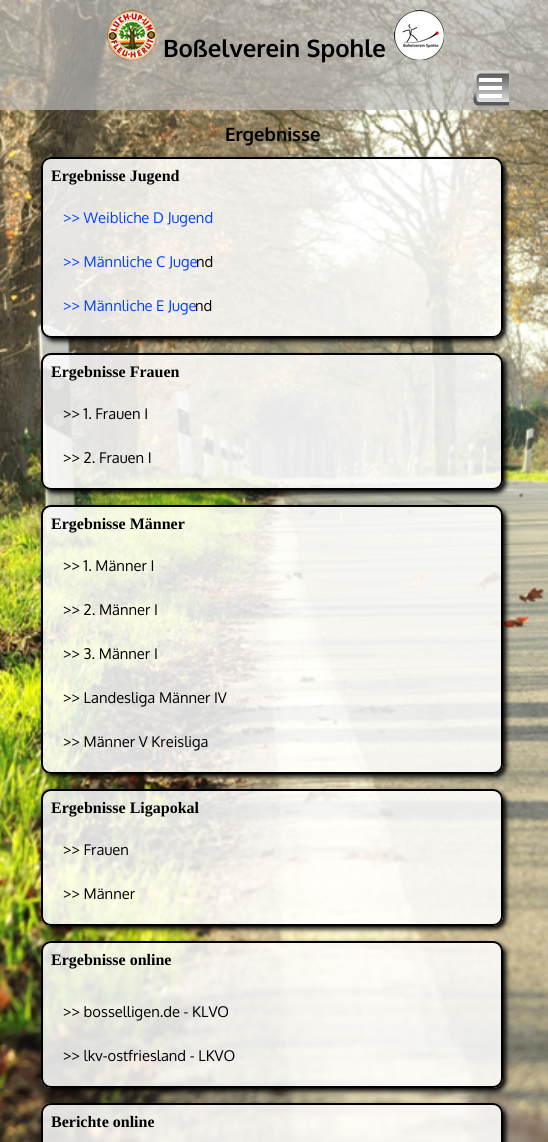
#include <cairo/cairo.h>
#include <math.h>
#include <stddef.h>

static cairo_t *cr;

static void use_color(int r, int g, int b) {
  cairo_set_source_rgb(cr, r / 255.0, g / 255.0, b / 255.0);
}

static void text(double x, double y, const char *s, const char *family, double size, int italic, int bold, int r, int g, int b) {
  cairo_select_font_face(cr, family, italic ? CAIRO_FONT_SLANT_ITALIC : CAIRO_FONT_SLANT_NORMAL,
    bold ? CAIRO_FONT_WEIGHT_BOLD : CAIRO_FONT_WEIGHT_NORMAL);
  cairo_set_font_size(cr, size);
  use_color(r, g, b);
  cairo_move_to(cr, x, y);
  cairo_show_text(cr, s);
}

static void box(double x, double y, double w, double h, int r, int g, int b) {
  use_color(r, g, b);
  cairo_rectangle(cr, x, y, w, h);
  cairo_fill(cr);
}

static void round_rect(double x, double y, double w, double h, double r) {
  cairo_new_sub_path(cr);
  cairo_arc(cr, x + w - r, y + h - r, r, 0, M_PI / 2);
  cairo_arc(cr, x + r, y + h - r, r, M_PI / 2, M_PI);
  cairo_arc(cr, x + r, y + r, r, M_PI, 1.5 * M_PI);
  cairo_arc(cr, x + w - r, y + r, r, 1.5 * M_PI, 2 * M_PI);
  cairo_close_path(cr);
}

static void shadow(double x, double y, double w, double h, double r, double blur, double alpha) {
  cairo_push_group_with_content(cr, CAIRO_CONTENT_ALPHA);
  cairo_set_operator(cr, CAIRO_OPERATOR_SOURCE);
  for (int i = 15; i >= -15 && fmin(w, h) + blur * i / 3 > 0; i -= 2) {
    double e = blur * i / 6;
    cairo_set_source_rgba(cr, 0, 0, 0, alpha * erfc((i - 1) / 8.5) / 2);
    round_rect(x - e, y - e, w + 2 * e, h + 2 * e, fmax(0, fmin(r + e + blur * .6, fmin(w, h) / 2 + e)));
    cairo_fill(cr);
  }
  cairo_pattern_t *soft = cairo_pop_group(cr);
  cairo_mask(cr, soft);
  cairo_pattern_destroy(soft);
}

static void picture(const char *path, double x, double y, double w, double h) {
  cairo_surface_t *image = cairo_image_surface_create_from_png(path);
  cairo_save(cr);
  cairo_set_source_surface(cr, image, x, y);
  cairo_rectangle(cr, x, y, w, h);
  cairo_fill(cr);
  cairo_restore(cr);
  cairo_surface_destroy(image);
}

static void draw(void) {
  use_color(255, 255, 255);
  cairo_paint(cr);
  picture("img_01.png", 0, 0, 548, 1142);
  cairo_set_source_rgba(cr, 0.741, 0.741, 0.741, 0.7);
  cairo_rectangle(cr, 0, 0, 548, 110);
  cairo_fill(cr);
  picture("img_02.png", 107, 10, 49, 50);
  picture("img_03.png", 394, 10, 50, 50);
  picture("img_04.png", 473, 70, 36, 36);
  box(479, 78, 23, 4, 255, 255, 255);
  box(479, 86, 23, 4, 255, 255, 255);
  box(479, 94, 23, 4, 255, 255, 255);
  cairo_set_source_rgba(cr, 1, 1, 1, 0.85);
  round_rect(41, 157, 462, 181, 10);
  cairo_fill(cr);
  cairo_save(cr);
  cairo_set_fill_rule(cr, CAIRO_FILL_RULE_EVEN_ODD);
  cairo_new_path(cr);
  cairo_move_to(cr, 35, 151);
  cairo_line_to(cr, 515, 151);
  cairo_line_to(cr, 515, 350);
  cairo_line_to(cr, 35, 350);
  cairo_close_path(cr);
  cairo_move_to(cr, 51, 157);
  cairo_line_to(cr, 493, 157);
  cairo_curve_to(cr, 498.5, 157, 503, 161.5, 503, 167);
  cairo_line_to(cr, 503, 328);
  cairo_curve_to(cr, 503, 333.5, 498.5, 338, 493, 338);
  cairo_line_to(cr, 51, 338);
  cairo_curve_to(cr, 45.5, 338, 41, 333.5, 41, 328);
  cairo_line_to(cr, 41, 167);
  cairo_curve_to(cr, 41, 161.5, 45.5, 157, 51, 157);
  cairo_close_path(cr);
  cairo_clip(cr);
  use_color(0, 0, 0);
  shadow(44, 160, 462, 181, 10, 2.5, 1);
  cairo_restore(cr);
  round_rect(42, 158, 460, 179, 9);
  use_color(0, 0, 0);
  cairo_stroke(cr);
  cairo_set_source_rgba(cr, 1, 1, 1, 0.85);
  round_rect(41, 353, 462, 137, 10);
  cairo_fill(cr);
  cairo_save(cr);
  cairo_set_fill_rule(cr, CAIRO_FILL_RULE_EVEN_ODD);
  cairo_new_path(cr);
  cairo_move_to(cr, 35, 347);
  cairo_line_to(cr, 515, 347);
  cairo_line_to(cr, 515, 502);
  cairo_line_to(cr, 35, 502);
  cairo_close_path(cr);
  cairo_move_to(cr, 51, 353);
  cairo_line_to(cr, 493, 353);
  cairo_curve_to(cr, 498.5, 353, 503, 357.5, 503, 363);
  cairo_line_to(cr, 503, 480);
  cairo_curve_to(cr, 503, 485.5, 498.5, 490, 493, 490);
  cairo_line_to(cr, 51, 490);
  cairo_curve_to(cr, 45.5, 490, 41, 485.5, 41, 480);
  cairo_line_to(cr, 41, 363);
  cairo_curve_to(cr, 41, 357.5, 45.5, 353, 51, 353);
  cairo_close_path(cr);
  cairo_clip(cr);
  use_color(0, 0, 0);
  shadow(44, 356, 462, 137, 10, 2.5, 1);
  cairo_restore(cr);
  round_rect(42, 354, 460, 135, 9);
  use_color(0, 0, 0);
  cairo_stroke(cr);
  cairo_set_source_rgba(cr, 1, 1, 1, 0.85);
  round_rect(41, 505, 462, 269, 10);
  cairo_fill(cr);
  cairo_save(cr);
  cairo_set_fill_rule(cr, CAIRO_FILL_RULE_EVEN_ODD);
  cairo_new_path(cr);
  cairo_move_to(cr, 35, 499);
  cairo_line_to(cr, 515, 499);
  cairo_line_to(cr, 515, 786);
  cairo_line_to(cr, 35, 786);
  cairo_close_path(cr);
  cairo_move_to(cr, 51, 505);
  cairo_line_to(cr, 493, 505);
  cairo_curve_to(cr, 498.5, 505, 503, 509.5, 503, 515);
  cairo_line_to(cr, 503, 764);
  cairo_curve_to(cr, 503, 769.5, 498.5, 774, 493, 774);
  cairo_line_to(cr, 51, 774);
  cairo_curve_to(cr, 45.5, 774, 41, 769.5, 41, 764);
  cairo_line_to(cr, 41, 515);
  cairo_curve_to(cr, 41, 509.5, 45.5, 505, 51, 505);
  cairo_close_path(cr);
  cairo_clip(cr);
  use_color(0, 0, 0);
  shadow(44, 508, 462, 269, 10, 2.5, 1);
  cairo_restore(cr);
  round_rect(42, 506, 460, 267, 9);
  use_color(0, 0, 0);
  cairo_stroke(cr);
  cairo_set_source_rgba(cr, 1, 1, 1, 0.85);
  round_rect(41, 789, 462, 137, 10);
  cairo_fill(cr);
  cairo_save(cr);
  cairo_set_fill_rule(cr, CAIRO_FILL_RULE_EVEN_ODD);
  cairo_new_path(cr);
  cairo_move_to(cr, 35, 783);
  cairo_line_to(cr, 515, 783);
  cairo_line_to(cr, 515, 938);
  cairo_line_to(cr, 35, 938);
  cairo_close_path(cr);
  cairo_move_to(cr, 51, 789);
  cairo_line_to(cr, 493, 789);
  cairo_curve_to(cr, 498.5, 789, 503, 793.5, 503, 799);
  cairo_line_to(cr, 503, 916);
  cairo_curve_to(cr, 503, 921.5, 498.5, 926, 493, 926);
  cairo_line_to(cr, 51, 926);
  cairo_curve_to(cr, 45.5, 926, 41, 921.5, 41, 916);
  cairo_line_to(cr, 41, 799);
  cairo_curve_to(cr, 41, 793.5, 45.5, 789, 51, 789);
  cairo_close_path(cr);
  cairo_clip(cr);
  use_color(0, 0, 0);
  shadow(44, 792, 462, 137, 10, 2.5, 1);
  cairo_restore(cr);
  round_rect(42, 790, 460, 135, 9);
  use_color(0, 0, 0);
  cairo_stroke(cr);
  cairo_set_source_rgba(cr, 1, 1, 1, 0.85);
  round_rect(41, 941, 462, 147, 10);
  cairo_fill(cr);
  cairo_save(cr);
  cairo_set_fill_rule(cr, CAIRO_FILL_RULE_EVEN_ODD);
  cairo_new_path(cr);
  cairo_move_to(cr, 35, 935);
  cairo_line_to(cr, 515, 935);
  cairo_line_to(cr, 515, 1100);
  cairo_line_to(cr, 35, 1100);
  cairo_close_path(cr);
  cairo_move_to(cr, 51, 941);
  cairo_line_to(cr, 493, 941);
  cairo_curve_to(cr, 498.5, 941, 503, 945.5, 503, 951);
  cairo_line_to(cr, 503, 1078);
  cairo_curve_to(cr, 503, 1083.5, 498.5, 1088, 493, 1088);
  cairo_line_to(cr, 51, 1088);
  cairo_curve_to(cr, 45.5, 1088, 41, 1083.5, 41, 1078);
  cairo_line_to(cr, 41, 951);
  cairo_curve_to(cr, 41, 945.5, 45.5, 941, 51, 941);
  cairo_close_path(cr);
  cairo_clip(cr);
  use_color(0, 0, 0);
  shadow(44, 944, 462, 147, 10, 2.5, 1);
  cairo_restore(cr);
  round_rect(42, 942, 460, 145, 9);
  use_color(0, 0, 0);
  cairo_stroke(cr);
  cairo_set_source_rgba(cr, 1, 1, 1, 0.85);
  round_rect(41, 1103, 462, 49, 10);
  cairo_fill(cr);
  cairo_save(cr);
  cairo_set_fill_rule(cr, CAIRO_FILL_RULE_EVEN_ODD);
  cairo_new_path(cr);
  cairo_move_to(cr, 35, 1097);
  cairo_line_to(cr, 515, 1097);
  cairo_line_to(cr, 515, 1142);
  cairo_line_to(cr, 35, 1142);
  cairo_close_path(cr);
  cairo_move_to(cr, 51, 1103);
  cairo_line_to(cr, 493, 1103);
  cairo_curve_to(cr, 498.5, 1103, 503, 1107.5, 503, 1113);
  cairo_line_to(cr, 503, 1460);
  cairo_curve_to(cr, 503, 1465.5, 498.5, 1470, 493, 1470);
  cairo_line_to(cr, 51, 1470);
  cairo_curve_to(cr, 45.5, 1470, 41, 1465.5, 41, 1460);
  cairo_line_to(cr, 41, 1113);
  cairo_curve_to(cr, 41, 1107.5, 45.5, 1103, 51, 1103);
  cairo_close_path(cr);
  cairo_clip(cr);
  use_color(0, 0, 0);
  shadow(44, 1106, 462, 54, 10, 2.5, 1);
  cairo_restore(cr);
  round_rect(42, 1104, 460, 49, 9);
  use_color(0, 0, 0);
  cairo_stroke(cr);
  text(163, 57, "Boßelverein Spohle", "Oxygen", 24, 0, 1, 0, 0, 0);
  text(225, 141, "Ergebnisse", "Oxygen", 18.5, 0, 1, 0, 0, 0);
  text(51, 181, "Ergebnisse Jugend", "Liberation Serif", 16, 0, 1, 0, 0, 0);
  text(63, 223, ">> Weibliche D Jugend", "Oxygen", 14.75, 0, 0, 0, 64, 255);
  text(63, 267, ">> Männliche C Juge", "Oxygen", 14.75, 0, 0, 0, 64, 255);
  text(196, 267, "nd", "Oxygen", 14.75, 0, 0, 0, 0, 0);
  text(63, 311, ">> Männliche E Juge", "Oxygen", 14.75, 0, 0, 0, 64, 255);
  text(195, 311, "nd", "Oxygen", 14.75, 0, 0, 0, 0, 0);
  text(51, 377, "Ergebnisse Frauen", "Liberation Serif", 16, 0, 1, 0, 0, 0);
  text(63, 419, ">> 1. Frauen I", "Oxygen", 14.75, 0, 0, 0, 0, 0);
  text(63, 463, ">> 2. Frauen I", "Oxygen", 14.75, 0, 0, 0, 0, 0);
  text(51, 529, "Ergebnisse Männer", "Liberation Serif", 16, 0, 1, 0, 0, 0);
  text(63, 571, ">> 1. Männer I", "Oxygen", 14.75, 0, 0, 0, 0, 0);
  text(63, 615, ">> 2. Männer I", "Oxygen", 14.75, 0, 0, 0, 0, 0);
  text(63, 659, ">> 3. Männer I", "Oxygen", 14.75, 0, 0, 0, 0, 0);
  text(63, 703, ">> Landesliga Männer IV", "Oxygen", 14.75, 0, 0, 0, 0, 0);
  text(63, 747, ">> Männer V Kreisliga", "Oxygen", 14.75, 0, 0, 0, 0, 0);
  text(51, 813, "Ergebnisse Ligapokal", "Liberation Serif", 16, 0, 1, 0, 0, 0);
  text(63, 855, ">> Frauen", "Oxygen", 14.75, 0, 0, 0, 0, 0);
  text(63, 899, ">> Männer", "Oxygen", 14.75, 0, 0, 0, 0, 0);
  text(51, 965, "Ergebnisse online", "Liberation Serif", 16, 0, 1, 0, 0, 0);
  text(63, 1017, ">> bosselligen.de - KLVO", "Oxygen", 14.75, 0, 0, 0, 0, 0);
  text(63, 1061, ">> lkv-ostfriesland - LKVO", "Oxygen", 14.75, 0, 0, 0, 0, 0);
  text(51, 1127, "Berichte online", "Liberation Serif", 16, 0, 1, 0, 0, 0);
}

int main(void) {
  cairo_surface_t *surface = cairo_image_surface_create(CAIRO_FORMAT_RGB24, 548, 1142);
  cr = cairo_create(surface);
  cairo_font_options_t *options = cairo_font_options_create();
  cairo_font_options_set_hint_metrics(options, CAIRO_HINT_METRICS_OFF);
  cairo_font_options_set_hint_style(options, CAIRO_HINT_STYLE_NONE);
  cairo_set_font_options(cr, options);
  cairo_set_miter_limit(cr, 4);
  draw();
  cairo_surface_write_to_png(surface, "out.png");
  cairo_font_options_destroy(options);
  cairo_destroy(cr);
  cairo_surface_destroy(surface);
  return 0;
}
